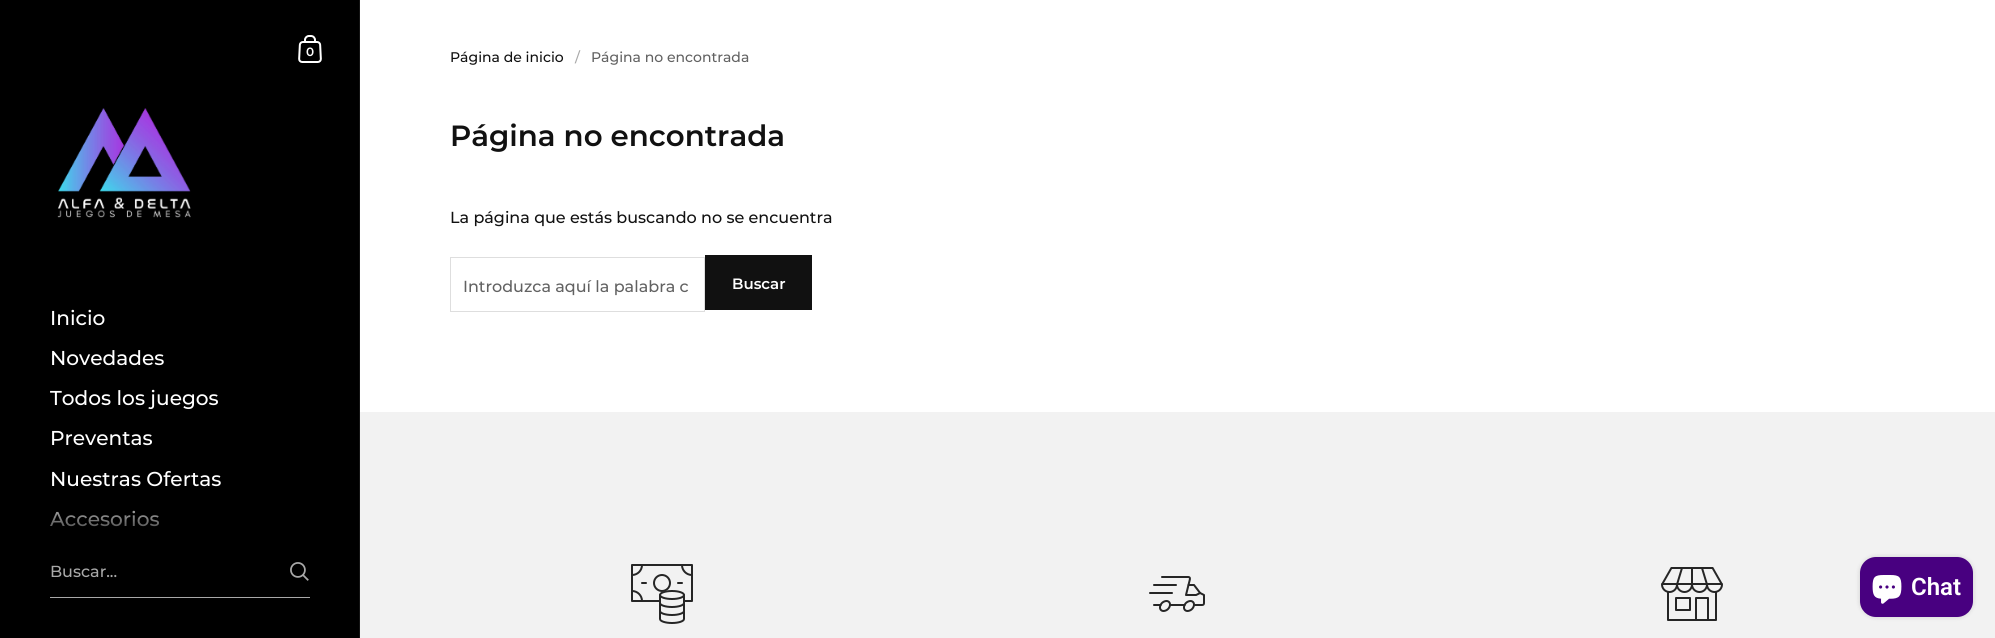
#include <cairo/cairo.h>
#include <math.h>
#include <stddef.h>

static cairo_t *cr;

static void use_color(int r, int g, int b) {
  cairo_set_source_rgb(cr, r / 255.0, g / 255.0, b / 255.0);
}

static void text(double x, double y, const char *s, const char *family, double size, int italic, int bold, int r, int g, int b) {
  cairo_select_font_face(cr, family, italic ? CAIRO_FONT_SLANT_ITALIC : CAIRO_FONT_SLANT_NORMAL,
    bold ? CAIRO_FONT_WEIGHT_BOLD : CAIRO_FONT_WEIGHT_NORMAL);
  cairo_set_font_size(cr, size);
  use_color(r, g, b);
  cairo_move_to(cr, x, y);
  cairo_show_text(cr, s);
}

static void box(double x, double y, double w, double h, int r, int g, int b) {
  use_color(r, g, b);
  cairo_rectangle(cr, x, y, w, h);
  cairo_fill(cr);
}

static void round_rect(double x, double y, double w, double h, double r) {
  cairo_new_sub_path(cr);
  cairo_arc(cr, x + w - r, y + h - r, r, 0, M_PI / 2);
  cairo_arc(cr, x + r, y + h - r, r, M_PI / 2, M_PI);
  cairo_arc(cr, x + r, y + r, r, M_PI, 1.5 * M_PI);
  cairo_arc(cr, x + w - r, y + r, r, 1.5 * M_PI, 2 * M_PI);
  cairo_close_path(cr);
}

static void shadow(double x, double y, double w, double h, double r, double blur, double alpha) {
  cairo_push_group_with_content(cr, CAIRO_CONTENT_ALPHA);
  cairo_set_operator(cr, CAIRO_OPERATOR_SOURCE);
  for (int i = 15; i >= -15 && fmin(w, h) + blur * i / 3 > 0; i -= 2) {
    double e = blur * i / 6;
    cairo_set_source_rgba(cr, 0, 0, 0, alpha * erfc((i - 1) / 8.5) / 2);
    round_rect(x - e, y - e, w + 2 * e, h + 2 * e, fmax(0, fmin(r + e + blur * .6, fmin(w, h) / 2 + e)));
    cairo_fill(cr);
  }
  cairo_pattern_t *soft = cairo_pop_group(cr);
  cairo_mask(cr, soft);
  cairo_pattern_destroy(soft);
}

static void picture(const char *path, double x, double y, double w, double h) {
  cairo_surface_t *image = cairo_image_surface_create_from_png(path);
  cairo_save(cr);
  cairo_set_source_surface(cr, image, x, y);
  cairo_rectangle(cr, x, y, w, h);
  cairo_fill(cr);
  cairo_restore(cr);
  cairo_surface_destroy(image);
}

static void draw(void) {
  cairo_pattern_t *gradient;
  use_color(255, 255, 255);
  cairo_paint(cr);
  box(0, 0, 359, 638, 0, 0, 0);
  box(359, 0, 1, 638, 20, 20, 20);
  picture("img_01.png", 298, 35, 24, 28);
  picture("img_02.png", 57, 108, 134, 110);
  box(50, 597, 260, 1, 168, 168, 168);
  picture("img_03.png", 290, 562, 19, 19);
  cairo_rectangle(cr, 450.5, 257.5, 254, 54);
  use_color(222, 222, 222);
  cairo_set_line_width(cr, 1);
  cairo_stroke(cr);
  box(705, 255, 107, 55, 17, 17, 17);
  box(360, 412, 1635, 226, 242, 242, 242);
  picture("img_04.png", 631, 564, 62, 60);
  picture("img_05.png", 1149, 576, 56, 36);
  picture("img_06.png", 1661, 567, 62, 54);
  use_color(0, 0, 0);
  shadow(1860, 557, 113, 60, 16, 2.5, 0.15);
  use_color(72, 0, 128);
  round_rect(1860, 557, 113, 60, 16);
  cairo_fill(cr);
  picture("img_07.png", 1872, 575, 30, 29);
  text(306, 56, "0", "Montserrat SemiBold", 12, 0, 0, 255, 255, 255);
  text(50, 325, "Inicio", "Montserrat Medium", 20.1, 0, 0, 255, 255, 255);
  text(50, 365, "Novedades", "Montserrat Medium", 20.1, 0, 0, 255, 255, 255);
  text(50, 405, "Todos los juegos", "Montserrat Medium", 20.1, 0, 0, 255, 255, 255);
  text(50, 445, "Preventas", "Montserrat Medium", 20.1, 0, 0, 255, 255, 255);
  text(50, 486, "Nuestras Ofertas", "Montserrat Medium", 20.1, 0, 0, 255, 255, 255);
  text(50, 526, "Accesorios", "Montserrat Medium", 20.1, 0, 0, 255, 255, 255);
  gradient = cairo_pattern_create_linear(180, 548, 180, 488);
  cairo_pattern_add_color_stop_rgba(gradient, 0, 0, 0, 0, 1);
  cairo_pattern_add_color_stop_rgba(gradient, 1, 0, 0, 0, 0);
  cairo_set_source(cr, gradient);
  cairo_pattern_destroy(gradient);
  cairo_rectangle(cr, 50, 510, 110, 17);
  cairo_fill(cr);
  text(50, 577, "Buscar...", "Montserrat Medium", 16, 0, 0, 169, 169, 169);
  text(450, 62, "Página de inicio", "Montserrat Medium", 14, 0, 0, 17, 17, 17);
  text(575, 62, "/", "Montserrat Medium", 14, 0, 0, 169, 169, 169);
  text(591, 62, "Página no encontrada", "Montserrat Medium", 14, 0, 0, 98, 98, 98);
  text(450, 146, "Página no encontrada", "Montserrat SemiBold", 29.25, 0, 0, 17, 17, 17);
  text(450, 223, "La página que estás buscando no se encuentra", "Montserrat Medium", 16, 0, 0, 17, 17, 17);
  text(463, 292, "Introduzca aquí la palabra c", "Montserrat Medium", 16, 0, 0, 98, 98, 98);
  text(732, 289, "Buscar", "Montserrat SemiBold", 15, 0, 0, 255, 255, 255);
  text(1911, 595, "Chat", "Roboto SemiBold", 24, 0, 0, 255, 255, 255);
}

int main(void) {
  cairo_surface_t *surface = cairo_image_surface_create(CAIRO_FORMAT_RGB24, 1995, 638);
  cr = cairo_create(surface);
  cairo_font_options_t *options = cairo_font_options_create();
  cairo_font_options_set_hint_metrics(options, CAIRO_HINT_METRICS_OFF);
  cairo_font_options_set_hint_style(options, CAIRO_HINT_STYLE_NONE);
  cairo_set_font_options(cr, options);
  cairo_set_miter_limit(cr, 4);
  draw();
  cairo_surface_write_to_png(surface, "out.png");
  cairo_font_options_destroy(options);
  cairo_destroy(cr);
  cairo_surface_destroy(surface);
  return 0;
}
